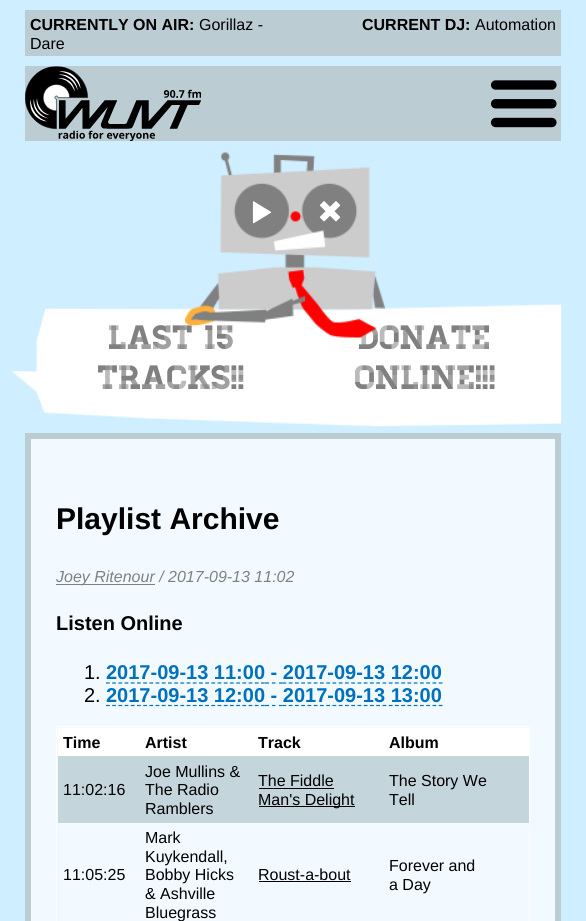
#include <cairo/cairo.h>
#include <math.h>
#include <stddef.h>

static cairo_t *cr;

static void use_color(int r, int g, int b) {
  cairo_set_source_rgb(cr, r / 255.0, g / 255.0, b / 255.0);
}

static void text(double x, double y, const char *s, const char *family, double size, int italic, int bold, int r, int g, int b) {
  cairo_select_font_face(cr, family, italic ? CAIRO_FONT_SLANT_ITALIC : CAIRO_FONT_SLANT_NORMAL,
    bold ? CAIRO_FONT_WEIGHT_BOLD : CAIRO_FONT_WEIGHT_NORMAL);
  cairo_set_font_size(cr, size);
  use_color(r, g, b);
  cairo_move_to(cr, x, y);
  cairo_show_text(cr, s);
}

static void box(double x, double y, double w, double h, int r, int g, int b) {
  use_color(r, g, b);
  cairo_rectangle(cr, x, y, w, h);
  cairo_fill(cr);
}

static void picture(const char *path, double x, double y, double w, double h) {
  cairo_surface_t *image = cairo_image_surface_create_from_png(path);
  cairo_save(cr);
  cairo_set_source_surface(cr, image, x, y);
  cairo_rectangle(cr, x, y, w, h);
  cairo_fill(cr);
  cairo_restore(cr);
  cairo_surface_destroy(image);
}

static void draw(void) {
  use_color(207, 238, 255);
  cairo_paint(cr);
  box(25, 10, 536, 46, 188, 204, 211);
  box(25, 66, 536, 75, 188, 204, 211);
  picture("img_01.png", 25, 66, 176, 75);
  picture("img_02.png", 490, 80, 67, 48);
  picture("img_06.png", 11, 303, 551, 124);
  use_color(242, 250, 255);
  cairo_rectangle(cr, 28, 436, 530, 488);
  cairo_fill_preserve(cr);
  use_color(188, 204, 211);
  cairo_set_line_width(cr, 6);
  cairo_stroke(cr);
  box(56, 584, 99, 1, 128, 128, 128);
  cairo_new_path(cr);
  cairo_move_to(cr, 106, 683);
  cairo_line_to(cr, 265, 683);
  use_color(0, 113, 188);
  cairo_set_line_width(cr, 1.2);
  cairo_set_dash(cr, (double[]){3.75, 2.45}, 2, 0);
  cairo_stroke(cr);
  cairo_new_path(cr);
  cairo_move_to(cr, 265, 683);
  cairo_line_to(cr, 269, 683);
  cairo_move_to(cr, 272, 683);
  cairo_line_to(cr, 275.5, 683);
  cairo_move_to(cr, 279, 683);
  cairo_line_to(cr, 282.5, 683);
  cairo_set_dash(cr, NULL, 0, 0);
  cairo_stroke(cr);
  cairo_new_path(cr);
  cairo_move_to(cr, 282.5, 683);
  cairo_line_to(cr, 442.5, 683);
  cairo_set_dash(cr, (double[]){3.75, 2.5}, 2, 0);
  cairo_stroke(cr);
  cairo_new_path(cr);
  cairo_move_to(cr, 106, 705.5);
  cairo_line_to(cr, 265, 705.5);
  cairo_set_dash(cr, (double[]){3.75, 2.45}, 2, 0);
  cairo_stroke(cr);
  cairo_new_path(cr);
  cairo_move_to(cr, 265, 705.5);
  cairo_line_to(cr, 269, 705.5);
  cairo_move_to(cr, 272, 705.5);
  cairo_line_to(cr, 275.5, 705.5);
  cairo_move_to(cr, 279, 705.5);
  cairo_line_to(cr, 282.5, 705.5);
  cairo_set_dash(cr, NULL, 0, 0);
  cairo_stroke(cr);
  cairo_new_path(cr);
  cairo_move_to(cr, 282.5, 705.5);
  cairo_line_to(cr, 442.5, 705.5);
  cairo_set_dash(cr, (double[]){3.75, 2.5}, 2, 0);
  cairo_stroke(cr);
  box(56, 726, 474, 1, 255, 255, 255);
  box(529, 726, 1, 195, 255, 255, 255);
  box(56, 726, 1, 195, 255, 255, 255);
  box(58, 728, 471, 28, 255, 255, 255);
  box(58, 756, 471, 67, 197, 213, 220);
  box(259, 788, 75, 1, 0, 0, 0);
  box(259, 806, 96, 1, 0, 0, 0);
  box(259, 881, 92, 1, 0, 0, 0);
  text(30, 30, "CURRENTLY ON AIR:", "Liberation Sans", 16, 0, 1, 0, 0, 0);
  text(199, 30, "Gorillaz -", "Liberation Sans", 16, 0, 0, 0, 0, 0);
  text(30, 49, "Dare", "Liberation Sans", 16, 0, 0, 0, 0, 0);
  text(362, 30, "CURRENT DJ:", "Liberation Sans", 16, 0, 1, 0, 0, 0);
  text(475, 30, "Automation", "Liberation Sans", 16, 0, 0, 0, 0, 0);
  text(109, 349, "LAST 15", "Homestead", 33.75, 0, 0, 128, 128, 128);
  text(98, 389, "TRACKS!!", "Homestead", 33.75, 0, 0, 128, 128, 128);
  text(359, 349, "DONATE", "Homestead", 33.75, 0, 0, 128, 128, 128);
  picture("img_03.png", 185, 152, 200, 186);
  picture("img_05.png", 319, 201, 22, 21);
  picture("img_04.png", 252, 201, 20, 23);
  text(355, 389, "ONLINE!!!", "Homestead", 33.75, 0, 0, 128, 128, 128);
  text(56, 529, "Playlist Archive", "Liberation Sans", 30, 0, 1, 0, 0, 0);
  text(56, 582, "Joey Ritenour / 2017-09-13 11:02", "Liberation Sans", 16, 1, 0, 128, 128, 128);
  text(56, 630, "Listen Online", "Liberation Sans", 20, 0, 1, 0, 0, 0);
  text(84, 679, "1.", "Liberation Sans", 20, 0, 0, 0, 0, 0);
  text(106, 679, "2017-09-13 11:00 - 2017-09-13 12:00", "Liberation Sans", 20, 0, 1, 0, 113, 188);
  text(84, 702, "2.", "Liberation Sans", 20, 0, 0, 0, 0, 0);
  text(106, 702, "2017-09-13 12:00 - 2017-09-13 13:00", "Liberation Sans", 20, 0, 1, 0, 113, 188);
  text(63, 748, "Time", "Liberation Sans", 16, 0, 1, 0, 0, 0);
  text(145, 748, "Artist", "Liberation Sans", 16, 0, 1, 0, 0, 0);
  text(258, 748, "Track", "Liberation Sans", 16, 0, 1, 0, 0, 0);
  text(389, 748, "Album", "Liberation Sans", 16, 0, 1, 0, 0, 0);
  text(63, 795, "11:02:16", "Liberation Sans", 16, 0, 0, 0, 0, 0);
  text(145, 777, "Joe Mullins &", "Liberation Sans", 16, 0, 0, 0, 0, 0);
  text(145, 795, "The Radio", "Liberation Sans", 16, 0, 0, 0, 0, 0);
  text(145, 814, "Ramblers", "Liberation Sans", 16, 0, 0, 0, 0, 0);
  text(258, 786, "The Fiddle", "Liberation Sans", 16, 0, 0, 0, 0, 0);
  text(258, 805, "Man's Delight", "Liberation Sans", 16, 0, 0, 0, 0, 0);
  text(389, 786, "The Story We", "Liberation Sans", 16, 0, 0, 0, 0, 0);
  text(389, 805, "Tell", "Liberation Sans", 16, 0, 0, 0, 0, 0);
  text(63, 880, "11:05:25", "Liberation Sans", 16, 0, 0, 0, 0, 0);
  text(145, 843, "Mark", "Liberation Sans", 16, 0, 0, 0, 0, 0);
  text(145, 862, "Kuykendall,", "Liberation Sans", 16, 0, 0, 0, 0, 0);
  text(145, 880, "Bobby Hicks", "Liberation Sans", 16, 0, 0, 0, 0, 0);
  text(145, 899, "& Ashville", "Liberation Sans", 16, 0, 0, 0, 0, 0);
  text(145, 918, "Bluegrass", "Liberation Sans", 16, 0, 0, 0, 0, 0);
  text(258, 880, "Roust-a-bout", "Liberation Sans", 16, 0, 0, 0, 0, 0);
  text(389, 871, "Forever and", "Liberation Sans", 16, 0, 0, 0, 0, 0);
  text(389, 890, "a Day", "Liberation Sans", 16, 0, 0, 0, 0, 0);
}

int main(void) {
  cairo_surface_t *surface = cairo_image_surface_create(CAIRO_FORMAT_RGB24, 586, 921);
  cr = cairo_create(surface);
  cairo_font_options_t *options = cairo_font_options_create();
  cairo_font_options_set_hint_metrics(options, CAIRO_HINT_METRICS_OFF);
  cairo_font_options_set_hint_style(options, CAIRO_HINT_STYLE_NONE);
  cairo_set_font_options(cr, options);
  cairo_set_miter_limit(cr, 4);
  draw();
  cairo_surface_write_to_png(surface, "out.png");
  cairo_font_options_destroy(options);
  cairo_destroy(cr);
  cairo_surface_destroy(surface);
  return 0;
}
